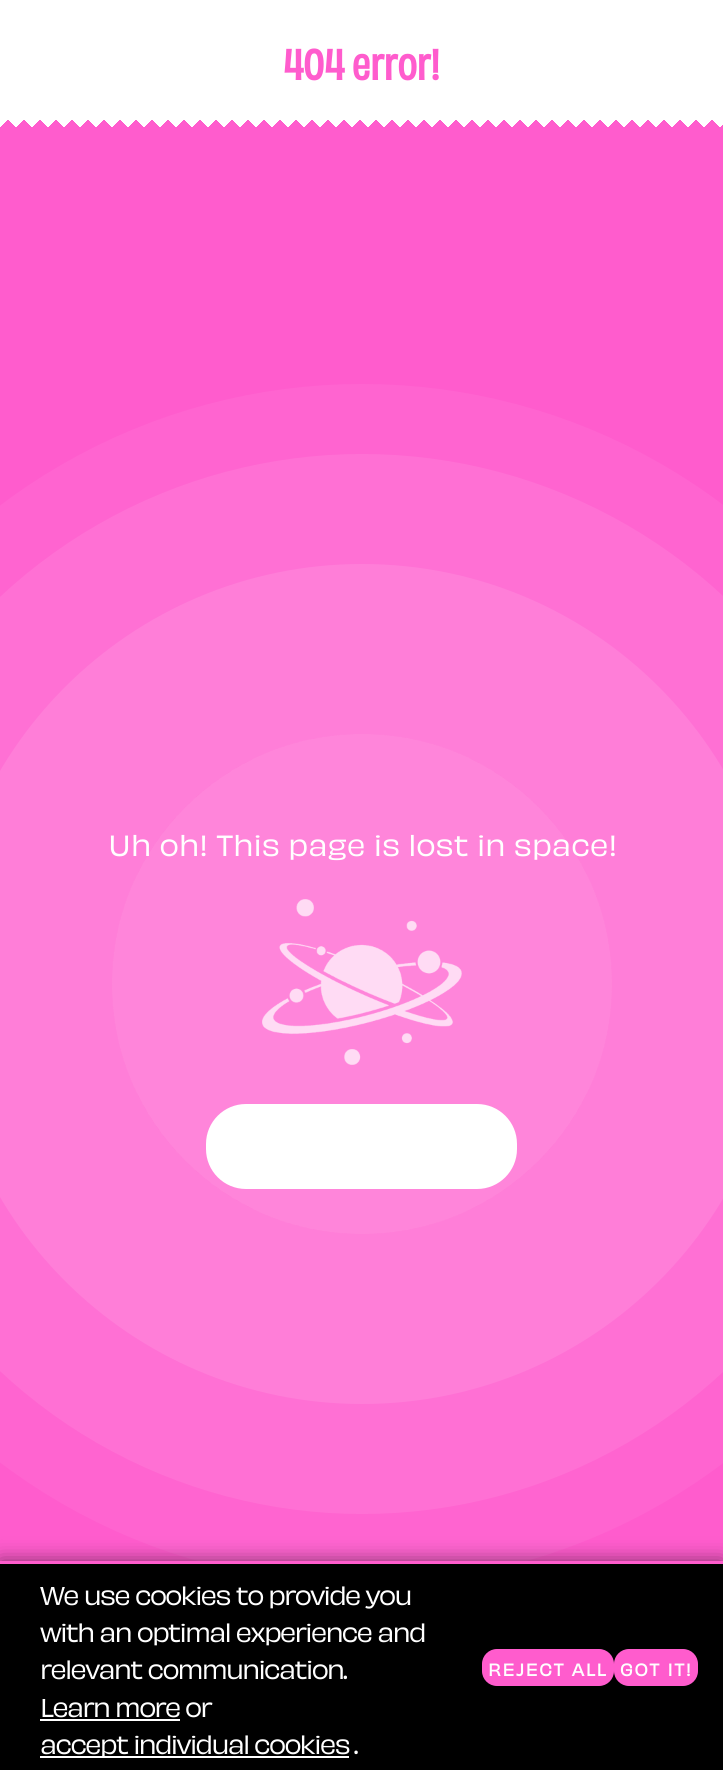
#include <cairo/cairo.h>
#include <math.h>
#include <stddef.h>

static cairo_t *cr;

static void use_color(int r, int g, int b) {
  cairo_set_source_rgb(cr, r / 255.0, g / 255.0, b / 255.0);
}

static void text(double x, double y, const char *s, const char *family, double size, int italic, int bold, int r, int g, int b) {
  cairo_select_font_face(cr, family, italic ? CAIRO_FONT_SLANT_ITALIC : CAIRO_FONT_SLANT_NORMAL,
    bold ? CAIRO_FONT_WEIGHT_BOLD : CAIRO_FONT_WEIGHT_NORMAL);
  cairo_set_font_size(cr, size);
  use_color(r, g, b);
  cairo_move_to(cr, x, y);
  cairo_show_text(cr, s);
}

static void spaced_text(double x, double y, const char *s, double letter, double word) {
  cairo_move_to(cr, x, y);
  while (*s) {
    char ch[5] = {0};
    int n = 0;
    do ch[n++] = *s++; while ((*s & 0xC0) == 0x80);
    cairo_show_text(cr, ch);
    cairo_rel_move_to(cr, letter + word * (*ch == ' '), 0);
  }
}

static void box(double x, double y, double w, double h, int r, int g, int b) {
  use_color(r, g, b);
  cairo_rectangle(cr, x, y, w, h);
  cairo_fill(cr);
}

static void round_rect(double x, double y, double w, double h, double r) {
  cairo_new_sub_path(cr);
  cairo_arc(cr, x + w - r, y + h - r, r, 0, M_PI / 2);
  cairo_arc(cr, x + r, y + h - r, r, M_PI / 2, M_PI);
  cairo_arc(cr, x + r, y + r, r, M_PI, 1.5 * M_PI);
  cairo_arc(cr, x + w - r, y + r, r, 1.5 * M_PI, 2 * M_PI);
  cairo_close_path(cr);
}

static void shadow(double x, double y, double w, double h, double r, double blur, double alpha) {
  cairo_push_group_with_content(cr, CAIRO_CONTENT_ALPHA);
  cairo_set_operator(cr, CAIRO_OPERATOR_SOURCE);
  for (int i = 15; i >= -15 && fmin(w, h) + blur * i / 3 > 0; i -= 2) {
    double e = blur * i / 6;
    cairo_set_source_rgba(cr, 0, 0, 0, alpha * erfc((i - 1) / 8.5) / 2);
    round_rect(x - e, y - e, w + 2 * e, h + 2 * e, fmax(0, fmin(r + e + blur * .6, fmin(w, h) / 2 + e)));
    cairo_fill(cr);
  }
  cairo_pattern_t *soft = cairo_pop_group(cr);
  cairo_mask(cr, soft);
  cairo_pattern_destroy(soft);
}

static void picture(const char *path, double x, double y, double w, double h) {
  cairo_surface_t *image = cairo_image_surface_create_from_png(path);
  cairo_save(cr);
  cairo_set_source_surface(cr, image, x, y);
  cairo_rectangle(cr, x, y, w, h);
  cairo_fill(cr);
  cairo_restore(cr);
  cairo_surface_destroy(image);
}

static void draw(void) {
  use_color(255, 92, 205);
  cairo_paint(cr);
  box(0, 0, 723, 120, 255, 255, 255);
  picture("img_01.png", 9, 120, 711, 7);
  picture("img_02.png", 0, 120, 723, 7);
  cairo_arc(cr, 362, 984, 425, 0, 2 * M_PI);
  use_color(255, 100, 208);
  cairo_set_line_width(cr, 350);
  cairo_stroke(cr);
  cairo_arc(cr, 362, 984, 390, 0, 2 * M_PI);
  cairo_set_source_rgba(cr, 1, 1, 1, 0.08);
  cairo_set_line_width(cr, 280);
  cairo_stroke(cr);
  cairo_arc(cr, 362, 984, 335, 0, 2 * M_PI);
  cairo_set_source_rgba(cr, 1, 1, 1, 0.1);
  cairo_set_line_width(cr, 170);
  cairo_stroke(cr);
  cairo_set_source_rgba(cr, 1, 1, 1, 0.25);
  cairo_arc(cr, 362, 984, 250, 0, 2 * M_PI);
  cairo_fill(cr);
  picture("img_03.png", 262, 899, 200, 166);
  use_color(255, 255, 255);
  round_rect(206, 1104, 311, 85, 40);
  cairo_fill(cr);
  use_color(0, 0, 0);
  shadow(0, 1561, 723, 209, 0, 10, 0.5);
  box(0, 1564, 723, 206, 0, 0, 0);
  box(0, 1561, 723, 3, 255, 92, 205);
  box(40, 1719, 140, 2, 255, 255, 255);
  box(40, 1756, 309, 2, 255, 255, 255);
  use_color(255, 92, 205);
  round_rect(482, 1649, 132, 37, 15);
  cairo_fill(cr);
  round_rect(614, 1649, 84, 37, 15);
  cairo_fill(cr);
  text(283, 80, "404 error!", "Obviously", 40, 0, 1, 255, 92, 205);
  text(108, 856, "Uh oh! This page is lost in space!", "Obviously Medium", 27.25, 0, 0, 255, 255, 255);
  cairo_set_font_size(cr, 24);
  spaced_text(40, 1605, "We use cookies to provide you", -1.6, 0);
  spaced_text(40, 1642, "with an optimal experience and", -1.6, 0);
  spaced_text(40, 1679, "relevant communication.", -1.6, 0);
  spaced_text(40, 1717, "Learn more", -1.6, 0);
  spaced_text(185, 1717, "or", -1.6, 0);
  spaced_text(40, 1754, "accept individual cookies", -1.6, 0);
  spaced_text(354, 1754, ".", -1.6, 0);
  cairo_select_font_face(cr, "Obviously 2", CAIRO_FONT_SLANT_NORMAL, CAIRO_FONT_WEIGHT_BOLD);
  cairo_set_font_size(cr, 16);
  spaced_text(488, 1676, "REJECT ALL", 1.6, 0);
  spaced_text(620, 1676, "GOT IT!", 1.6, 0);
}

int main(void) {
  cairo_surface_t *surface = cairo_image_surface_create(CAIRO_FORMAT_RGB24, 723, 1770);
  cr = cairo_create(surface);
  cairo_font_options_t *options = cairo_font_options_create();
  cairo_font_options_set_hint_metrics(options, CAIRO_HINT_METRICS_OFF);
  cairo_font_options_set_hint_style(options, CAIRO_HINT_STYLE_NONE);
  cairo_set_font_options(cr, options);
  cairo_set_miter_limit(cr, 4);
  draw();
  cairo_surface_write_to_png(surface, "out.png");
  cairo_font_options_destroy(options);
  cairo_destroy(cr);
  cairo_surface_destroy(surface);
  return 0;
}
